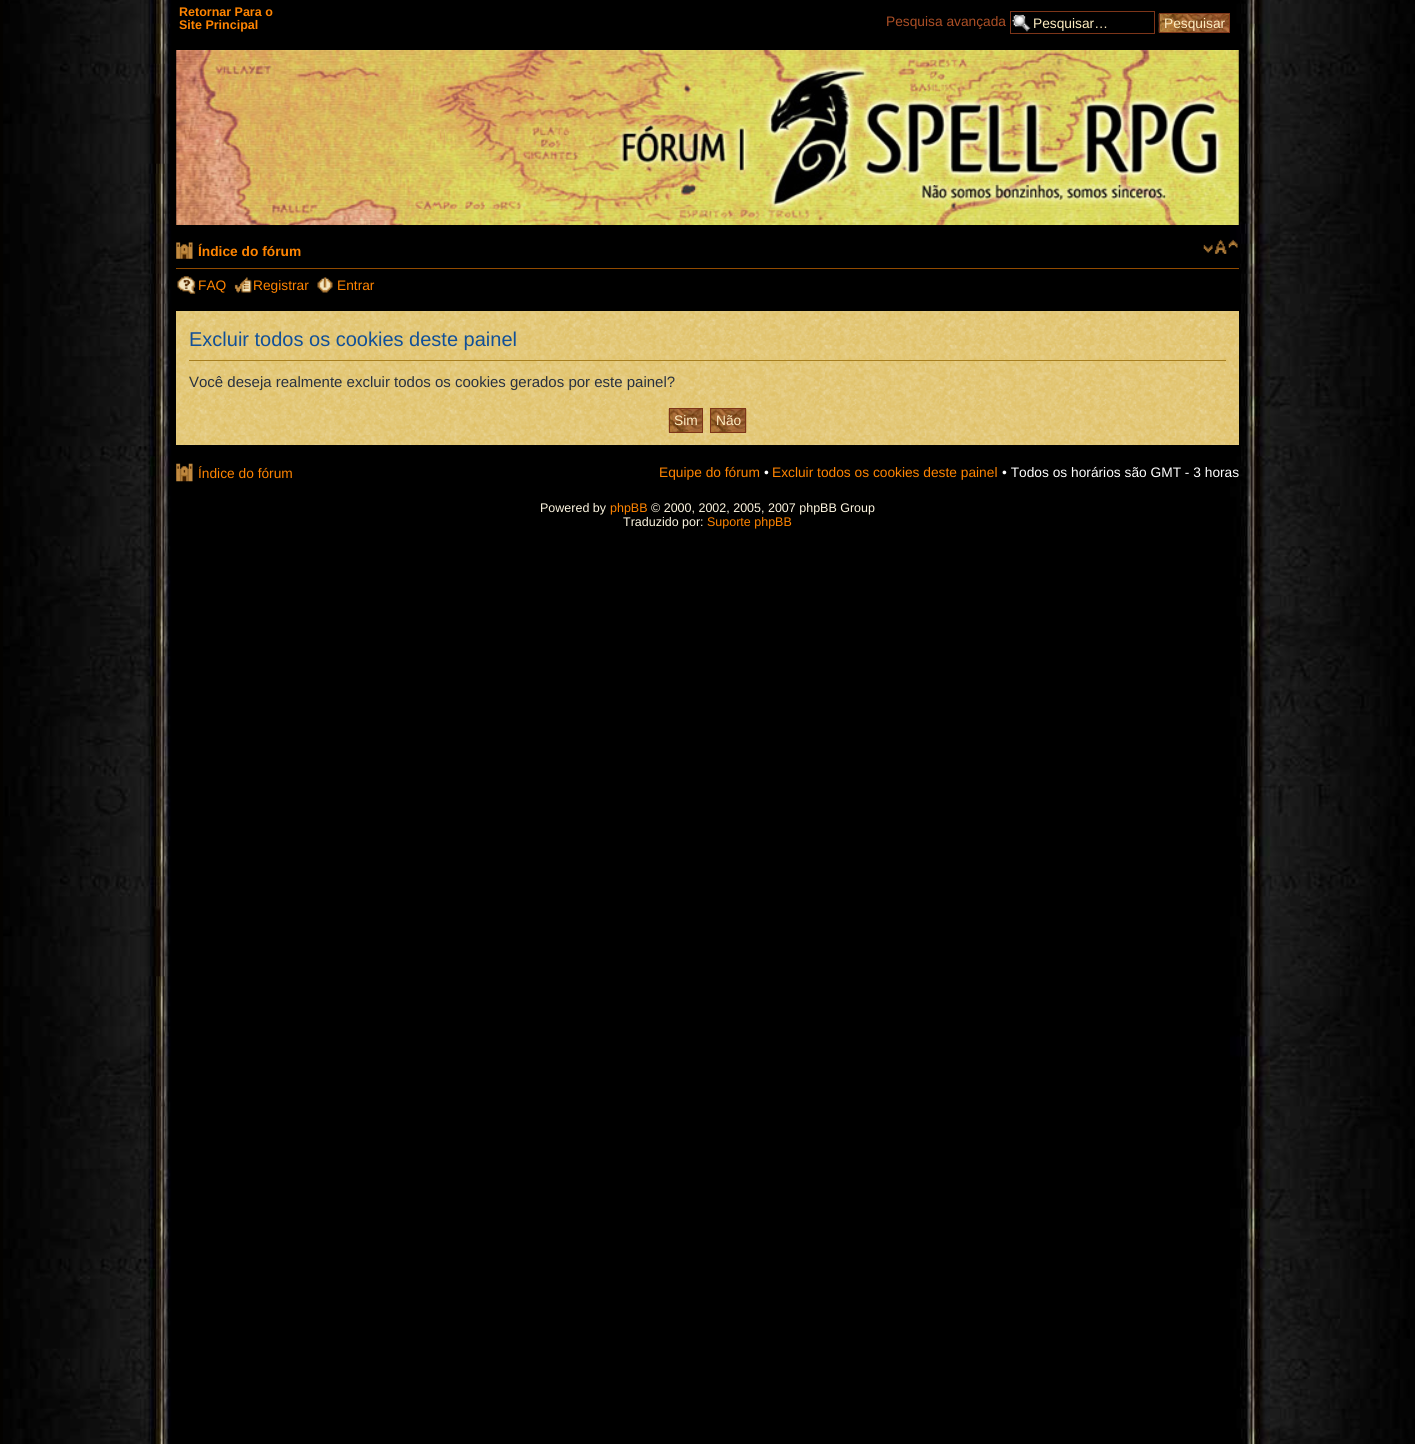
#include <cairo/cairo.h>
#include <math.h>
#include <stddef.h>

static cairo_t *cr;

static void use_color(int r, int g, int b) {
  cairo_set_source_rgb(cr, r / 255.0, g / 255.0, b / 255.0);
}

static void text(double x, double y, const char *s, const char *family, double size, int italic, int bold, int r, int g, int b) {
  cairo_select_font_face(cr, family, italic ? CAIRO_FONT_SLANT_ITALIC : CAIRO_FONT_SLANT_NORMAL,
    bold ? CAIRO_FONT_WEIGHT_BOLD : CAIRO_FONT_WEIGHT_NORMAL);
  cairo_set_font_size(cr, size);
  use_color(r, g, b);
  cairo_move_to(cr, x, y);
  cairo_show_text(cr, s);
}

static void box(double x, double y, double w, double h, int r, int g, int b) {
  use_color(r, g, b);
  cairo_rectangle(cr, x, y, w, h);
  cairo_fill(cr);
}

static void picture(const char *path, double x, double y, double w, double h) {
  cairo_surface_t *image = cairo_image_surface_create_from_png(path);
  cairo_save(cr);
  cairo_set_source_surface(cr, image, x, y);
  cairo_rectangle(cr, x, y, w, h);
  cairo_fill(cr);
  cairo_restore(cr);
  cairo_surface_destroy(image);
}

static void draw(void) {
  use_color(3, 2, 0);
  cairo_paint(cr);
  picture("img_01.png", 3, 534, 1412, 910);
  picture("img_02.png", 3, 0, 1412, 534);
  picture("img_03.png", 1012, 14, 19, 18);
  cairo_rectangle(cr, 1010.5, 11.5, 144, 22);
  use_color(125, 53, 25);
  cairo_set_line_width(cr, 1);
  cairo_stroke(cr);
  picture("img_04.png", 1158, 13, 71, 20);
  cairo_rectangle(cr, 1159.5, 13.5, 70, 19);
  cairo_stroke(cr);
  picture("img_05.png", 176, 50, 1063, 175);
  box(176, 268, 1063, 1, 144, 74, 0);
  picture("img_06.png", 176, 242, 17, 17);
  picture("img_07.png", 1203, 239, 35, 15);
  picture("img_08.png", 177, 276, 19, 18);
  picture("img_09.png", 234, 277, 18, 16);
  picture("img_10.png", 317, 277, 16, 16);
  box(176, 311, 1063, 134, 228, 202, 128);
  picture("img_11.png", 176, 311, 1063, 134);
  box(189, 360, 1037, 1, 166, 126, 32);
  picture("img_12.png", 668, 408, 34, 25);
  cairo_rectangle(cr, 669.5, 408.5, 33, 24);
  use_color(125, 53, 25);
  cairo_stroke(cr);
  picture("img_13.png", 711, 408, 36, 25);
  cairo_rectangle(cr, 710.5, 408.5, 35, 24);
  cairo_stroke(cr);
  picture("img_14.png", 176, 463, 17, 19);
  text(179, 16, "Retornar Para o", "Liberation Sans", 12.5, 0, 1, 255, 132, 0);
  text(179, 29, "Site Principal", "Liberation Sans", 12.5, 0, 1, 255, 132, 0);
  text(886, 26, "Pesquisa avançada", "Liberation Sans", 13.75, 0, 0, 171, 78, 37);
  text(1033, 28, "Pesquisar…", "Liberation Sans", 13.75, 0, 0, 254, 237, 193);
  text(1164, 28, "Pesquisar", "Liberation Sans", 13.75, 0, 0, 254, 237, 193);
  text(198, 256, "Índice do fórum", "Liberation Sans", 13.75, 0, 1, 255, 132, 0);
  text(198, 290, "FAQ", "Liberation Sans", 13.75, 0, 0, 255, 132, 0);
  text(253, 290, "Registrar", "Liberation Sans", 13.75, 0, 0, 255, 132, 0);
  text(337, 290, "Entrar", "Liberation Sans", 13.75, 0, 0, 255, 132, 0);
  text(189, 346, "Excluir todos os cookies deste painel", "Liberation Sans", 20, 0, 0, 17, 80, 152);
  text(189, 387, "Você deseja realmente excluir todos os cookies gerados por este painel?", "Liberation Sans", 15, 0, 0, 40, 49, 63);
  text(674, 425, "Sim", "Liberation Sans", 13.75, 0, 0, 254, 237, 193);
  text(716, 425, "Não", "Liberation Sans", 13.75, 0, 0, 254, 237, 193);
  text(198, 478, "Índice do fórum", "Liberation Sans", 13.75, 0, 0, 255, 132, 0);
  text(659, 477, "Equipe do fórum", "Liberation Sans", 13.75, 0, 0, 255, 132, 0);
  text(764, 477, "•", "Liberation Sans", 13.75, 0, 0, 255, 255, 255);
  text(772, 477, "Excluir todos os cookies deste painel", "Liberation Sans", 13.75, 0, 0, 255, 132, 0);
  text(1002, 477, "• Todos os horários são GMT - 3 horas", "Liberation Sans", 13.75, 0, 0, 255, 255, 255);
  text(540, 512, "Powered by", "Liberation Sans", 12.5, 0, 0, 254, 246, 224);
  text(610, 512, "phpBB", "Liberation Sans", 12.5, 0, 0, 255, 132, 0);
  text(651, 512, "© 2000, 2002, 2005, 2007 phpBB Group", "Liberation Sans", 12.5, 0, 0, 254, 246, 224);
  text(623, 526, "Traduzido por:", "Liberation Sans", 12.5, 0, 0, 254, 246, 224);
  text(707, 526, "Suporte phpBB", "Liberation Sans", 12.5, 0, 0, 255, 132, 0);
}

int main(void) {
  cairo_surface_t *surface = cairo_image_surface_create(CAIRO_FORMAT_RGB24, 1415, 1444);
  cr = cairo_create(surface);
  cairo_font_options_t *options = cairo_font_options_create();
  cairo_font_options_set_hint_metrics(options, CAIRO_HINT_METRICS_OFF);
  cairo_font_options_set_hint_style(options, CAIRO_HINT_STYLE_NONE);
  cairo_set_font_options(cr, options);
  cairo_set_miter_limit(cr, 4);
  draw();
  cairo_surface_write_to_png(surface, "out.png");
  cairo_font_options_destroy(options);
  cairo_destroy(cr);
  cairo_surface_destroy(surface);
  return 0;
}
